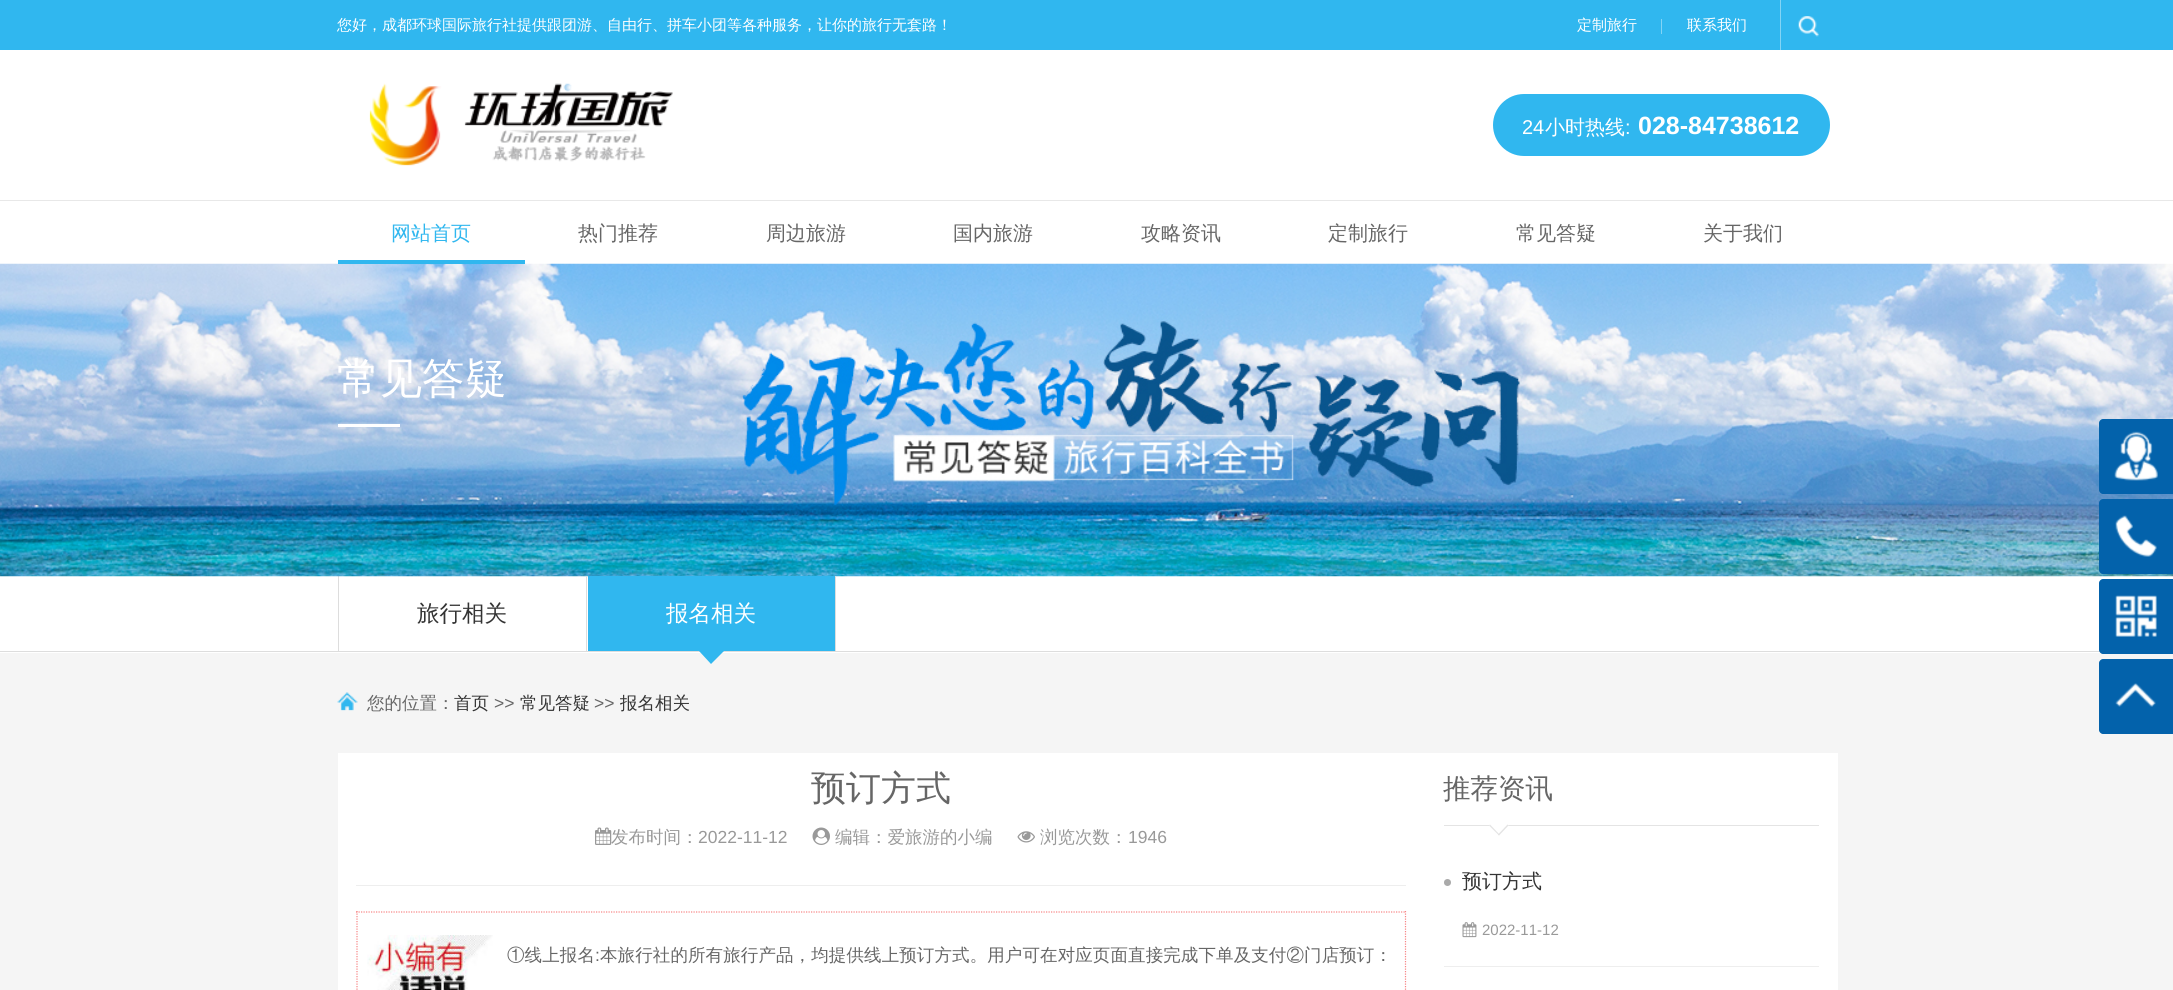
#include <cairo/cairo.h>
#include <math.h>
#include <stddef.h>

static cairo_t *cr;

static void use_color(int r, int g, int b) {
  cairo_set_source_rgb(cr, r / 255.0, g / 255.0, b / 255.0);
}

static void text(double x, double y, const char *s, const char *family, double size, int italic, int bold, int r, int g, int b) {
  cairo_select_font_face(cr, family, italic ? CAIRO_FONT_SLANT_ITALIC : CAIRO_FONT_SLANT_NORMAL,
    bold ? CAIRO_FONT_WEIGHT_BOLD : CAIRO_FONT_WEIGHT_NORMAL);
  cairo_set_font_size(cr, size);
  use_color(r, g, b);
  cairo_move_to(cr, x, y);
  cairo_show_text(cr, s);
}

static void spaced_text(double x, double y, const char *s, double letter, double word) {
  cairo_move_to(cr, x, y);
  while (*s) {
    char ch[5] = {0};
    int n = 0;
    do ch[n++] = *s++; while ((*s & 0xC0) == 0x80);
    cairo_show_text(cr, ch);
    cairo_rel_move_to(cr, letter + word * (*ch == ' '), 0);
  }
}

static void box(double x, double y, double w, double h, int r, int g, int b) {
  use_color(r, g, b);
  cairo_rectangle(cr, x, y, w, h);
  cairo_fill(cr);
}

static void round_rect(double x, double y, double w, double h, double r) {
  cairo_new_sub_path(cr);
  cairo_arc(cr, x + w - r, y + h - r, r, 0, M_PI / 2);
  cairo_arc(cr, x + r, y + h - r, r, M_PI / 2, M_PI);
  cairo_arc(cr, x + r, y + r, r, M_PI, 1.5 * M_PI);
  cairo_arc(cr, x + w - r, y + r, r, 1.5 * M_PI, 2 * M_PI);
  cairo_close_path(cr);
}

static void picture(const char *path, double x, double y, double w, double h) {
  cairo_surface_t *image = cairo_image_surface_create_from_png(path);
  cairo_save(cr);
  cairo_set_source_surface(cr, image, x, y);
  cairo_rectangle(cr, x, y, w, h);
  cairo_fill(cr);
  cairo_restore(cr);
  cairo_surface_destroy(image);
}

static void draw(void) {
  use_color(255, 255, 255);
  cairo_paint(cr);
  box(0, 0, 2173, 50, 48, 183, 239);
  box(1661, 19, 1, 15, 131, 212, 245);
  box(1780, 0, 1, 50, 131, 212, 245);
  picture("img_01.png", 1798, 16, 21, 21);
  picture("img_02.png", 369, 83, 304, 83);
  use_color(48, 183, 239);
  round_rect(1493, 94, 337, 62, 31);
  cairo_fill(cr);
  box(0, 200, 2173, 1, 232, 232, 232);
  box(338, 576, 1, 75, 221, 221, 221);
  picture("img_03.png", 0, 263, 2173, 314);
  box(338, 260, 187, 4, 48, 183, 239);
  box(338, 424, 62, 3, 255, 255, 255);
  box(0, 653, 2173, 337, 245, 245, 245);
  box(0, 651, 2100, 1, 221, 221, 221);
  box(586, 576, 1, 75, 221, 221, 221);
  box(835, 576, 1, 75, 221, 221, 221);
  box(588, 576, 247, 75, 48, 183, 239);
  cairo_new_path(cr);
  cairo_move_to(cr, 699, 651);
  cairo_line_to(cr, 724, 651);
  cairo_line_to(cr, 711, 664);
  cairo_close_path(cr);
  cairo_fill(cr);
  picture("img_04.png", 337, 692, 21, 19);
  box(338, 753, 1500, 237, 255, 255, 255);
  box(356, 885, 1050, 1, 238, 238, 238);
  picture("img_05.png", 595, 827, 17, 18);
  picture("img_06.png", 812, 827, 18, 18);
  picture("img_07.png", 1017, 831, 18, 12);
  picture("img_08.png", 367, 935, 126, 55);
  cairo_new_path(cr);
  cairo_move_to(cr, 356, 912);
  cairo_line_to(cr, 1406, 912);
  use_color(247, 132, 133);
  cairo_set_line_width(cr, 1.2);
  cairo_set_dash(cr, (double[]){1.25, 1.25}, 2, 0);
  cairo_stroke(cr);
  cairo_new_path(cr);
  cairo_move_to(cr, 1405.5, 911);
  cairo_line_to(cr, 1405.5, 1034);
  cairo_stroke(cr);
  cairo_new_path(cr);
  cairo_move_to(cr, 357, 911);
  cairo_line_to(cr, 357, 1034);
  cairo_stroke(cr);
  box(1444, 825, 375, 1, 228, 228, 228);
  use_color(255, 255, 255);
  cairo_new_path(cr);
  cairo_move_to(cr, 1499, 816);
  cairo_line_to(cr, 1508.5, 825.5);
  cairo_line_to(cr, 1499, 835.5);
  cairo_line_to(cr, 1489, 825.5);
  cairo_close_path(cr);
  cairo_fill(cr);
  use_color(228, 228, 228);
  cairo_new_path(cr);
  cairo_move_to(cr, 1507.5, 824.5);
  cairo_line_to(cr, 1508.5, 825.5);
  cairo_line_to(cr, 1499, 835.5);
  cairo_line_to(cr, 1498, 834.5);
  cairo_close_path(cr);
  cairo_fill(cr);
  cairo_new_path(cr);
  cairo_move_to(cr, 1490, 824.5);
  cairo_line_to(cr, 1499.5, 834.5);
  cairo_line_to(cr, 1499, 835.5);
  cairo_line_to(cr, 1489, 825.5);
  cairo_close_path(cr);
  cairo_fill(cr);
  box(1444, 966, 375, 1, 238, 238, 238);
  use_color(170, 170, 170);
  cairo_arc(cr, 1447.5, 882.5, 3.5, 0, 2 * M_PI);
  cairo_fill(cr);
  picture("img_09.png", 1462, 922, 15, 16);
  use_color(3, 98, 171);
  cairo_new_path(cr);
  cairo_move_to(cr, 2103, 419);
  cairo_line_to(cr, 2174, 419);
  cairo_line_to(cr, 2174, 494);
  cairo_line_to(cr, 2103, 494);
  cairo_curve_to(cr, 2101, 494, 2099, 492, 2099, 490);
  cairo_line_to(cr, 2099, 423);
  cairo_curve_to(cr, 2099, 421, 2101, 419, 2103, 419);
  cairo_close_path(cr);
  cairo_fill(cr);
  picture("img_10.png", 2114, 431, 44, 50);
  cairo_new_path(cr);
  cairo_move_to(cr, 2103, 499);
  cairo_line_to(cr, 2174, 499);
  cairo_line_to(cr, 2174, 574);
  cairo_line_to(cr, 2103, 574);
  cairo_curve_to(cr, 2101, 574, 2099, 572, 2099, 570);
  cairo_line_to(cr, 2099, 503);
  cairo_curve_to(cr, 2099, 501, 2101, 499, 2103, 499);
  cairo_close_path(cr);
  cairo_fill(cr);
  picture("img_11.png", 2115, 515, 42, 42);
  cairo_new_path(cr);
  cairo_move_to(cr, 2103, 579);
  cairo_line_to(cr, 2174, 579);
  cairo_line_to(cr, 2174, 654);
  cairo_line_to(cr, 2103, 654);
  cairo_curve_to(cr, 2101, 654, 2099, 652, 2099, 650);
  cairo_line_to(cr, 2099, 583);
  cairo_curve_to(cr, 2099, 581, 2101, 579, 2103, 579);
  cairo_close_path(cr);
  cairo_fill(cr);
  picture("img_12.png", 2115, 595, 42, 42);
  cairo_new_path(cr);
  cairo_move_to(cr, 2103, 659);
  cairo_line_to(cr, 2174, 659);
  cairo_line_to(cr, 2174, 734);
  cairo_line_to(cr, 2103, 734);
  cairo_curve_to(cr, 2101, 734, 2099, 732, 2099, 730);
  cairo_line_to(cr, 2099, 663);
  cairo_curve_to(cr, 2099, 661, 2101, 659, 2103, 659);
  cairo_close_path(cr);
  cairo_fill(cr);
  picture("img_13.png", 2115, 683, 41, 24);
  text(337, 30, "您好，成都环球国际旅行社提供跟团游、自由行、拼车小团等各种服务，让你的旅行无套路！", "WenQuanYi Zen Hei Medium", 15, 0, 0, 255, 255, 255);
  text(1577, 30, "定制旅行", "WenQuanYi Zen Hei Medium", 15, 0, 0, 255, 255, 255);
  text(1687, 30, "联系我们", "WenQuanYi Zen Hei Medium", 15, 0, 0, 255, 255, 255);
  text(1522, 134, "24", "Liberation Sans", 20, 0, 0, 255, 255, 255);
  text(1545, 134, "小时热线", "WenQuanYi Zen Hei Medium", 20, 0, 0, 255, 255, 255);
  text(1625, 134, ":", "Liberation Sans", 20, 0, 0, 255, 255, 255);
  text(1638, 134, "028-84738612", "Liberation Sans", 25, 0, 1, 255, 255, 255);
  text(391, 240, "网站首页", "WenQuanYi Zen Hei Medium", 20, 0, 0, 48, 183, 239);
  text(578, 240, "热门推荐", "WenQuanYi Zen Hei Medium", 20, 0, 0, 102, 102, 102);
  text(766, 240, "周边旅游", "WenQuanYi Zen Hei Medium", 20, 0, 0, 102, 102, 102);
  text(953, 240, "国内旅游", "WenQuanYi Zen Hei Medium", 20, 0, 0, 102, 102, 102);
  text(1141, 240, "攻略资讯", "WenQuanYi Zen Hei Medium", 20, 0, 0, 102, 102, 102);
  text(1328, 240, "定制旅行", "WenQuanYi Zen Hei Medium", 20, 0, 0, 102, 102, 102);
  text(1516, 240, "常见答疑", "WenQuanYi Zen Hei Medium", 20, 0, 0, 102, 102, 102);
  text(1703, 240, "关于我们", "WenQuanYi Zen Hei Medium", 20, 0, 0, 102, 102, 102);
  text(337, 393, "常见答疑", "WenQuanYi Zen Hei Medium", 42.5, 0, 0, 255, 255, 255);
  text(417, 621, "旅行相关", "WenQuanYi Zen Hei Medium", 22.5, 0, 0, 51, 51, 51);
  text(666, 621, "报名相关", "WenQuanYi Zen Hei Medium", 22.5, 0, 0, 255, 255, 255);
  text(367, 709, "您的位置：", "WenQuanYi Zen Hei Medium", 17.5, 0, 0, 102, 102, 102);
  text(454, 709, "首页", "WenQuanYi Zen Hei Medium", 17.5, 0, 0, 51, 51, 51);
  text(494, 709, ">>", "Liberation Sans", 17.5, 0, 0, 102, 102, 102);
  text(520, 709, "常见答疑", "WenQuanYi Zen Hei Medium", 17.5, 0, 0, 51, 51, 51);
  text(594, 709, ">>", "Liberation Sans", 17.5, 0, 0, 102, 102, 102);
  text(620, 709, "报名相关", "WenQuanYi Zen Hei Medium", 17.5, 0, 0, 51, 51, 51);
  text(811, 800, "预订方式", "WenQuanYi Zen Hei Medium", 35, 0, 0, 102, 102, 102);
  text(611, 843, "发布时间：", "WenQuanYi Zen Hei Medium", 17.5, 0, 0, 153, 153, 153);
  text(698, 843, "2022-11-12", "Liberation Sans", 17.5, 0, 0, 153, 153, 153);
  text(835, 843, "编辑：爱旅游的小编", "WenQuanYi Zen Hei Medium", 17.5, 0, 0, 153, 153, 153);
  text(1040, 843, "浏览次数：", "WenQuanYi Zen Hei Medium", 17.5, 0, 0, 153, 153, 153);
  text(1128, 843, "1946", "Liberation Sans", 17.5, 0, 0, 153, 153, 153);
  cairo_select_font_face(cr, "WenQuanYi Zen Hei Medium", CAIRO_FONT_SLANT_NORMAL, CAIRO_FONT_WEIGHT_NORMAL);
  use_color(102, 102, 102);
  spaced_text(507, 961, "①线上报名", 0.1, 0);
  cairo_select_font_face(cr, "Liberation Sans", CAIRO_FONT_SLANT_NORMAL, CAIRO_FONT_WEIGHT_NORMAL);
  spaced_text(595, 961, ":", 0.1, 0);
  cairo_select_font_face(cr, "WenQuanYi Zen Hei Medium", CAIRO_FONT_SLANT_NORMAL, CAIRO_FONT_WEIGHT_NORMAL);
  spaced_text(600, 961, "本旅行社的所有旅行产品，均提供线上预订方式。用户可在对应页面直接完成下单及支付②门店预订：", 0.1, 0);
  text(1443, 798, "推荐资讯", "WenQuanYi Zen Hei Medium", 27.5, 0, 0, 102, 102, 102);
  text(1462, 888, "预订方式", "WenQuanYi Zen Hei Medium", 20, 0, 0, 51, 51, 51);
  text(1482, 935, "2022-11-12", "Liberation Sans", 15, 0, 0, 153, 153, 153);
}

int main(void) {
  cairo_surface_t *surface = cairo_image_surface_create(CAIRO_FORMAT_RGB24, 2173, 990);
  cr = cairo_create(surface);
  cairo_font_options_t *options = cairo_font_options_create();
  cairo_font_options_set_hint_metrics(options, CAIRO_HINT_METRICS_OFF);
  cairo_font_options_set_hint_style(options, CAIRO_HINT_STYLE_NONE);
  cairo_set_font_options(cr, options);
  cairo_set_miter_limit(cr, 4);
  draw();
  cairo_surface_write_to_png(surface, "out.png");
  cairo_font_options_destroy(options);
  cairo_destroy(cr);
  cairo_surface_destroy(surface);
  return 0;
}
